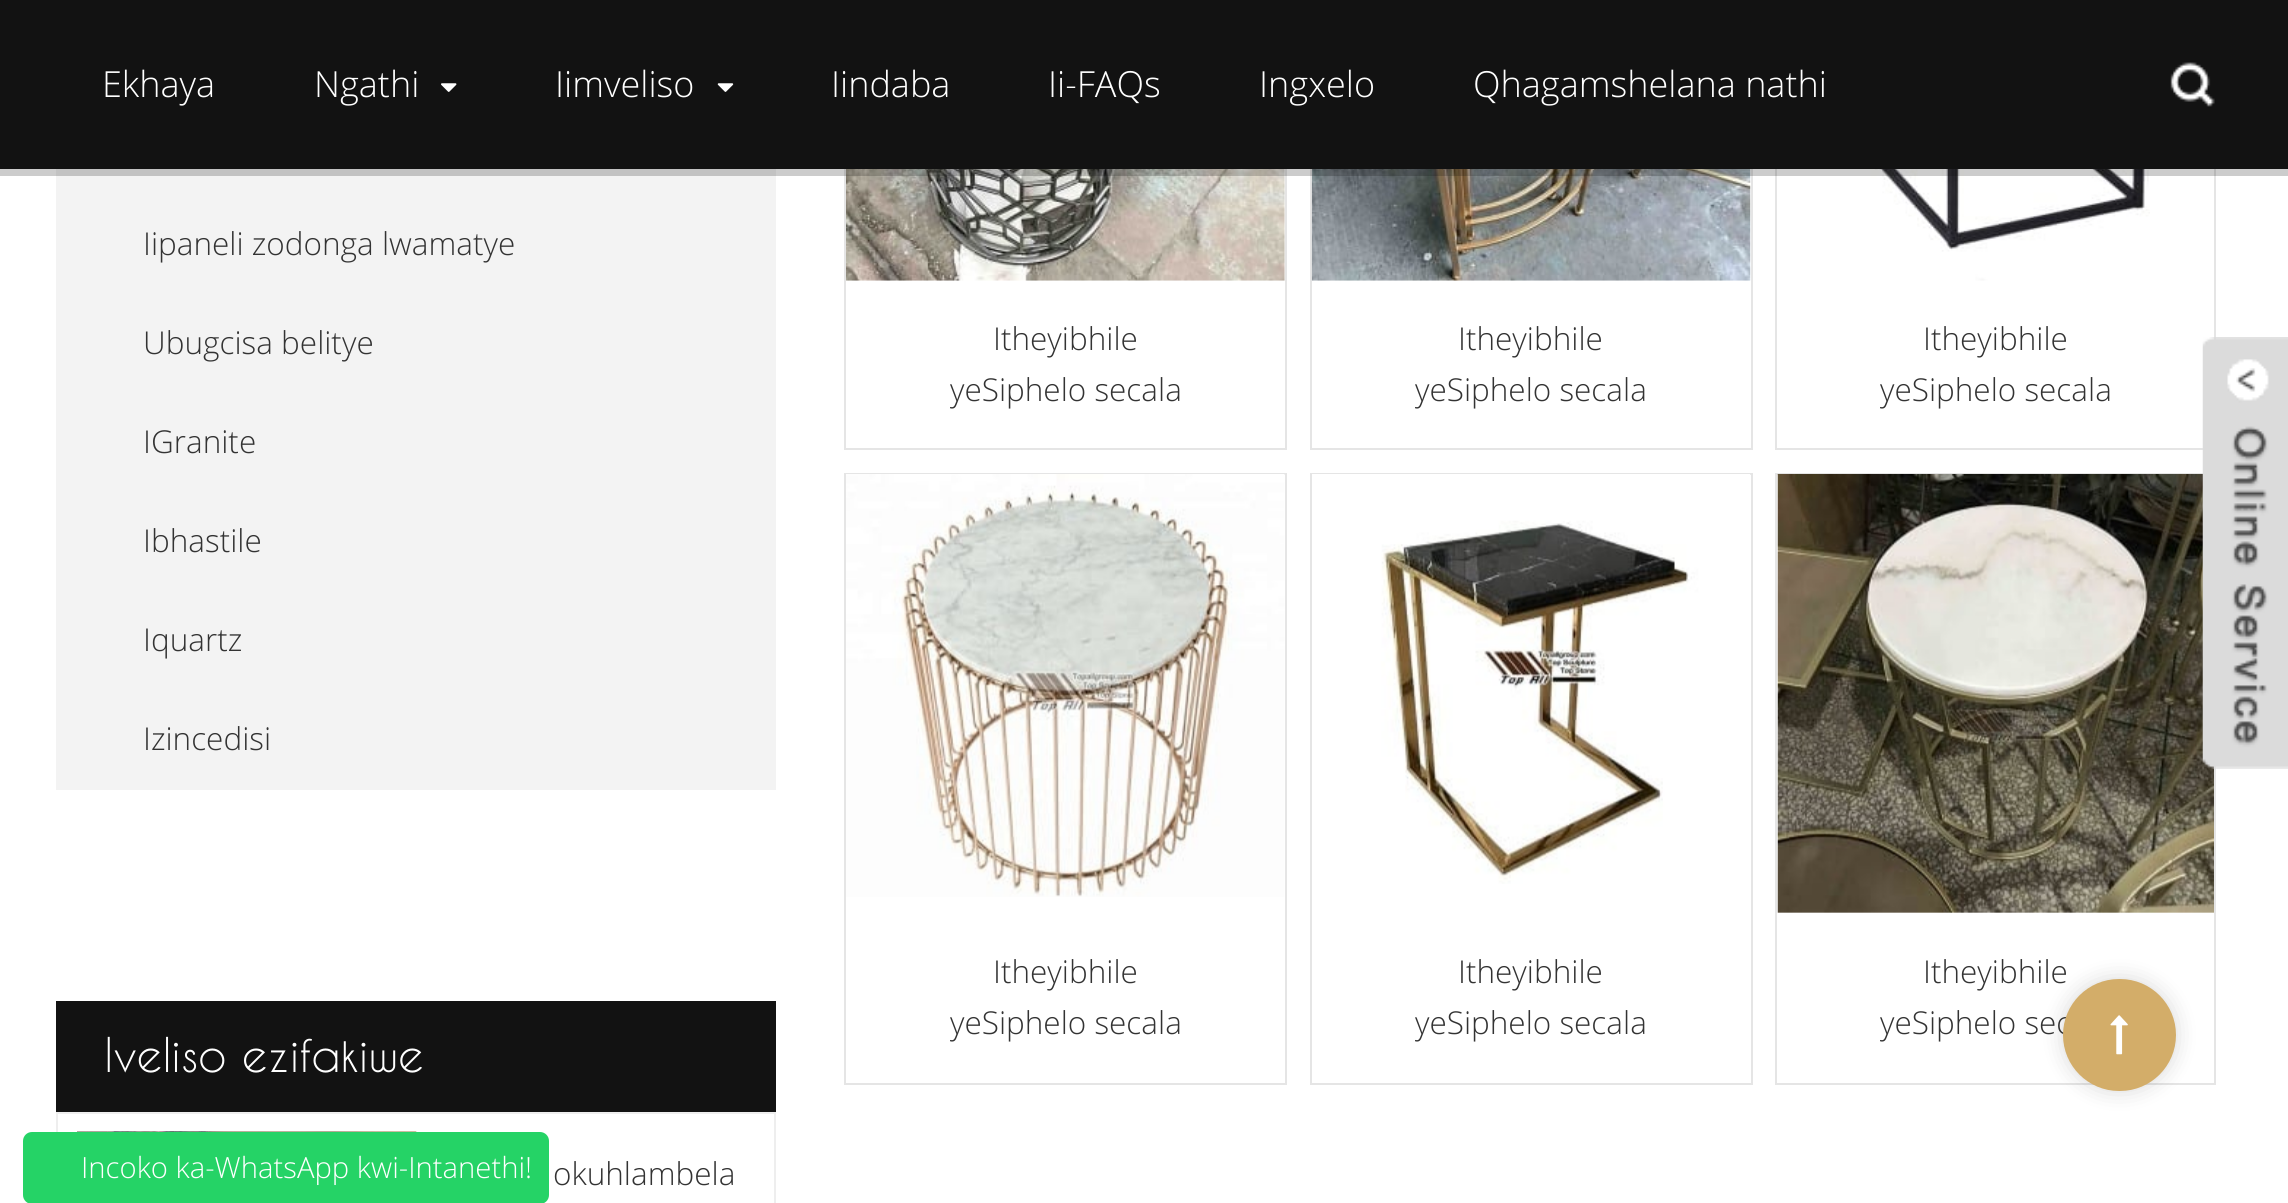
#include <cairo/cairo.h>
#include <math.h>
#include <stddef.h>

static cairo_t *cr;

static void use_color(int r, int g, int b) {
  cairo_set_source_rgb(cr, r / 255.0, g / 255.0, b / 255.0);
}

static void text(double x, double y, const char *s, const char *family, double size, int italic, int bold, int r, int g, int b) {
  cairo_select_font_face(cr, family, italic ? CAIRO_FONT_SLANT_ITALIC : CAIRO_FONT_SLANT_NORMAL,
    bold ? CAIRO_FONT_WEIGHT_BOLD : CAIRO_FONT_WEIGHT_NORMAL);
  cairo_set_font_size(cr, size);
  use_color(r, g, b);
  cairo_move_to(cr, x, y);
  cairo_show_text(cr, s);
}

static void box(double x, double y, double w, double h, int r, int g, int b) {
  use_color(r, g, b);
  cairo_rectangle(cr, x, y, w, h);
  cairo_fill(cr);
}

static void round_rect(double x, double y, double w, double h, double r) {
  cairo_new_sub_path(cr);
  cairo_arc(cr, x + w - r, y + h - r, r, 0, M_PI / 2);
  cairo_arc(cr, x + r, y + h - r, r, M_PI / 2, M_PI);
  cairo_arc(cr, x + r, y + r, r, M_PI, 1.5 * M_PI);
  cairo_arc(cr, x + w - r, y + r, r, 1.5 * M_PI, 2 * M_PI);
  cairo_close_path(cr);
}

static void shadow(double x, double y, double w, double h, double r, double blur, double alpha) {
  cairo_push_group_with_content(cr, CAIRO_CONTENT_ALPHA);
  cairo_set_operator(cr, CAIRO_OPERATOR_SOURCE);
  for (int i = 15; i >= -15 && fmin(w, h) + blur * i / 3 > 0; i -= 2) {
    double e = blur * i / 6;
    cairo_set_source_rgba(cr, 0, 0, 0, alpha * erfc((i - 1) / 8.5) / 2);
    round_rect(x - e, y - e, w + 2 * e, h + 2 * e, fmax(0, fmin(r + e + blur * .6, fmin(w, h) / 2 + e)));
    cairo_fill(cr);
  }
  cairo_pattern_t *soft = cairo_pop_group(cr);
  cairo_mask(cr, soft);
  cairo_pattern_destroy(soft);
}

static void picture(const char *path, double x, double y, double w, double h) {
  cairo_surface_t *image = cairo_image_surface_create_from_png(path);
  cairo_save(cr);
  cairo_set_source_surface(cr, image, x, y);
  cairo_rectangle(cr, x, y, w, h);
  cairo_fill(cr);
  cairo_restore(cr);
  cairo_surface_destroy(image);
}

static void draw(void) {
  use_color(255, 255, 255);
  cairo_paint(cr);
  box(56, 169, 720, 621, 243, 243, 243);
  cairo_rectangle(cr, 845, -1, 441, 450);
  use_color(229, 229, 229);
  cairo_stroke(cr);
  picture("img_05.png", 846, 169, 439, 112);
  cairo_rectangle(cr, 1311, -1, 441, 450);
  cairo_stroke(cr);
  picture("img_06.png", 1311, 169, 440, 112);
  cairo_rectangle(cr, 1776, -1, 439, 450);
  cairo_stroke(cr);
  picture("img_07.png", 1859, 169, 291, 112);
  cairo_set_source_rgba(cr, 0, 0, 0, 0.2);
  cairo_rectangle(cr, 0, 169, 2288, 7);
  cairo_fill(cr);
  box(0, 0, 2288, 169, 18, 18, 18);
  picture("img_01.png", 441, 83, 16, 9);
  picture("img_02.png", 717, 83, 17, 9);
  picture("img_03.png", 2170, 62, 45, 45);
  box(56, 1001, 720, 111, 18, 18, 18);
  cairo_rectangle(cr, 57, 1113, 718, 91);
  use_color(238, 238, 238);
  cairo_stroke(cr);
  picture("img_04.png", 77, 1131, 340, 1);
  cairo_rectangle(cr, 845, 474, 441, 610);
  use_color(229, 229, 229);
  cairo_stroke(cr);
  picture("img_08.png", 846, 474, 439, 423);
  cairo_rectangle(cr, 1311, 474, 441, 610);
  cairo_stroke(cr);
  picture("img_09.png", 1312, 474, 439, 410);
  cairo_rectangle(cr, 1776, 474, 439, 610);
  cairo_stroke(cr);
  picture("img_10.png", 1777, 474, 437, 439);
  picture("img_11.png", 2202, 337, 86, 432);
  use_color(0, 0, 0);
  shadow(2063, 979, 113, 112, 56, 11, 0.15);
  use_color(37, 211, 102);
  round_rect(23, 1132, 526, 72, 9);
  cairo_fill(cr);
  text(102, 97, "Ekhaya", "Open Sans Light", 36, 0, 0, 255, 255, 255);
  text(314, 97, "Ngathi", "Open Sans Light", 36, 0, 0, 255, 255, 255);
  text(555, 97, "Iimveliso", "Open Sans Light", 36, 0, 0, 255, 255, 255);
  text(831, 97, "Iindaba", "Open Sans Light", 36, 0, 0, 255, 255, 255);
  text(1048, 97, "Ii-FAQs", "Open Sans Light", 36, 0, 0, 255, 255, 255);
  text(1259, 97, "Ingxelo", "Open Sans Light", 36, 0, 0, 255, 255, 255);
  text(1473, 97, "Qhagamshelana nathi", "Open Sans Light", 36, 0, 0, 255, 255, 255);
  text(143, 255, "Iipaneli zodonga lwamatye", "Open Sans Light", 31.5, 0, 0, 51, 51, 51);
  text(143, 354, "Ubugcisa belitye", "Open Sans Light", 31.5, 0, 0, 51, 51, 51);
  text(143, 453, "IGranite", "Open Sans Light", 31.5, 0, 0, 51, 51, 51);
  text(143, 552, "Ibhastile", "Open Sans Light", 31.5, 0, 0, 51, 51, 51);
  text(143, 651, "Iquartz", "Open Sans Light", 31.5, 0, 0, 51, 51, 51);
  text(143, 750, "Izincedisi", "Open Sans Light", 31.5, 0, 0, 51, 51, 51);
  text(104, 1072, "Iveliso ezifakiwe", "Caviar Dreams", 45, 0, 0, 255, 255, 255);
  text(553, 1185, "okuhlambela", "Open Sans Light", 31.5, 0, 0, 51, 51, 51);
  text(993, 350, "Itheyibhile", "Open Sans Light", 31.5, 0, 0, 51, 51, 51);
  text(950, 401, "yeSiphelo secala", "Open Sans Light", 31.5, 0, 0, 51, 51, 51);
  text(1458, 350, "Itheyibhile", "Open Sans Light", 31.5, 0, 0, 51, 51, 51);
  text(1415, 401, "yeSiphelo secala", "Open Sans Light", 31.5, 0, 0, 51, 51, 51);
  text(1923, 350, "Itheyibhile", "Open Sans Light", 31.5, 0, 0, 51, 51, 51);
  text(1880, 401, "yeSiphelo secala", "Open Sans Light", 31.5, 0, 0, 51, 51, 51);
  text(993, 983, "Itheyibhile", "Open Sans Light", 31.5, 0, 0, 51, 51, 51);
  text(950, 1034, "yeSiphelo secala", "Open Sans Light", 31.5, 0, 0, 51, 51, 51);
  text(1458, 983, "Itheyibhile", "Open Sans Light", 31.5, 0, 0, 51, 51, 51);
  text(1415, 1034, "yeSiphelo secala", "Open Sans Light", 31.5, 0, 0, 51, 51, 51);
  text(1923, 983, "Itheyibhile", "Open Sans Light", 31.5, 0, 0, 51, 51, 51);
  text(1880, 1034, "yeSiphelo sec", "Open Sans Light", 31.5, 0, 0, 51, 51, 51);
  use_color(211, 173, 105);
  round_rect(2063, 979, 113, 112, 56);
  cairo_fill(cr);
  picture("img_12.png", 2110, 1015, 18, 40);
  text(81, 1178, "Incoko ka-WhatsApp kwi-Intanethi!", "Open Sans Light", 29.25, 0, 0, 255, 255, 255);
}

int main(void) {
  cairo_surface_t *surface = cairo_image_surface_create(CAIRO_FORMAT_RGB24, 2288, 1203);
  cr = cairo_create(surface);
  cairo_font_options_t *options = cairo_font_options_create();
  cairo_font_options_set_hint_metrics(options, CAIRO_HINT_METRICS_OFF);
  cairo_font_options_set_hint_style(options, CAIRO_HINT_STYLE_NONE);
  cairo_set_font_options(cr, options);
  cairo_set_miter_limit(cr, 4);
  draw();
  cairo_surface_write_to_png(surface, "out.png");
  cairo_font_options_destroy(options);
  cairo_destroy(cr);
  cairo_surface_destroy(surface);
  return 0;
}
